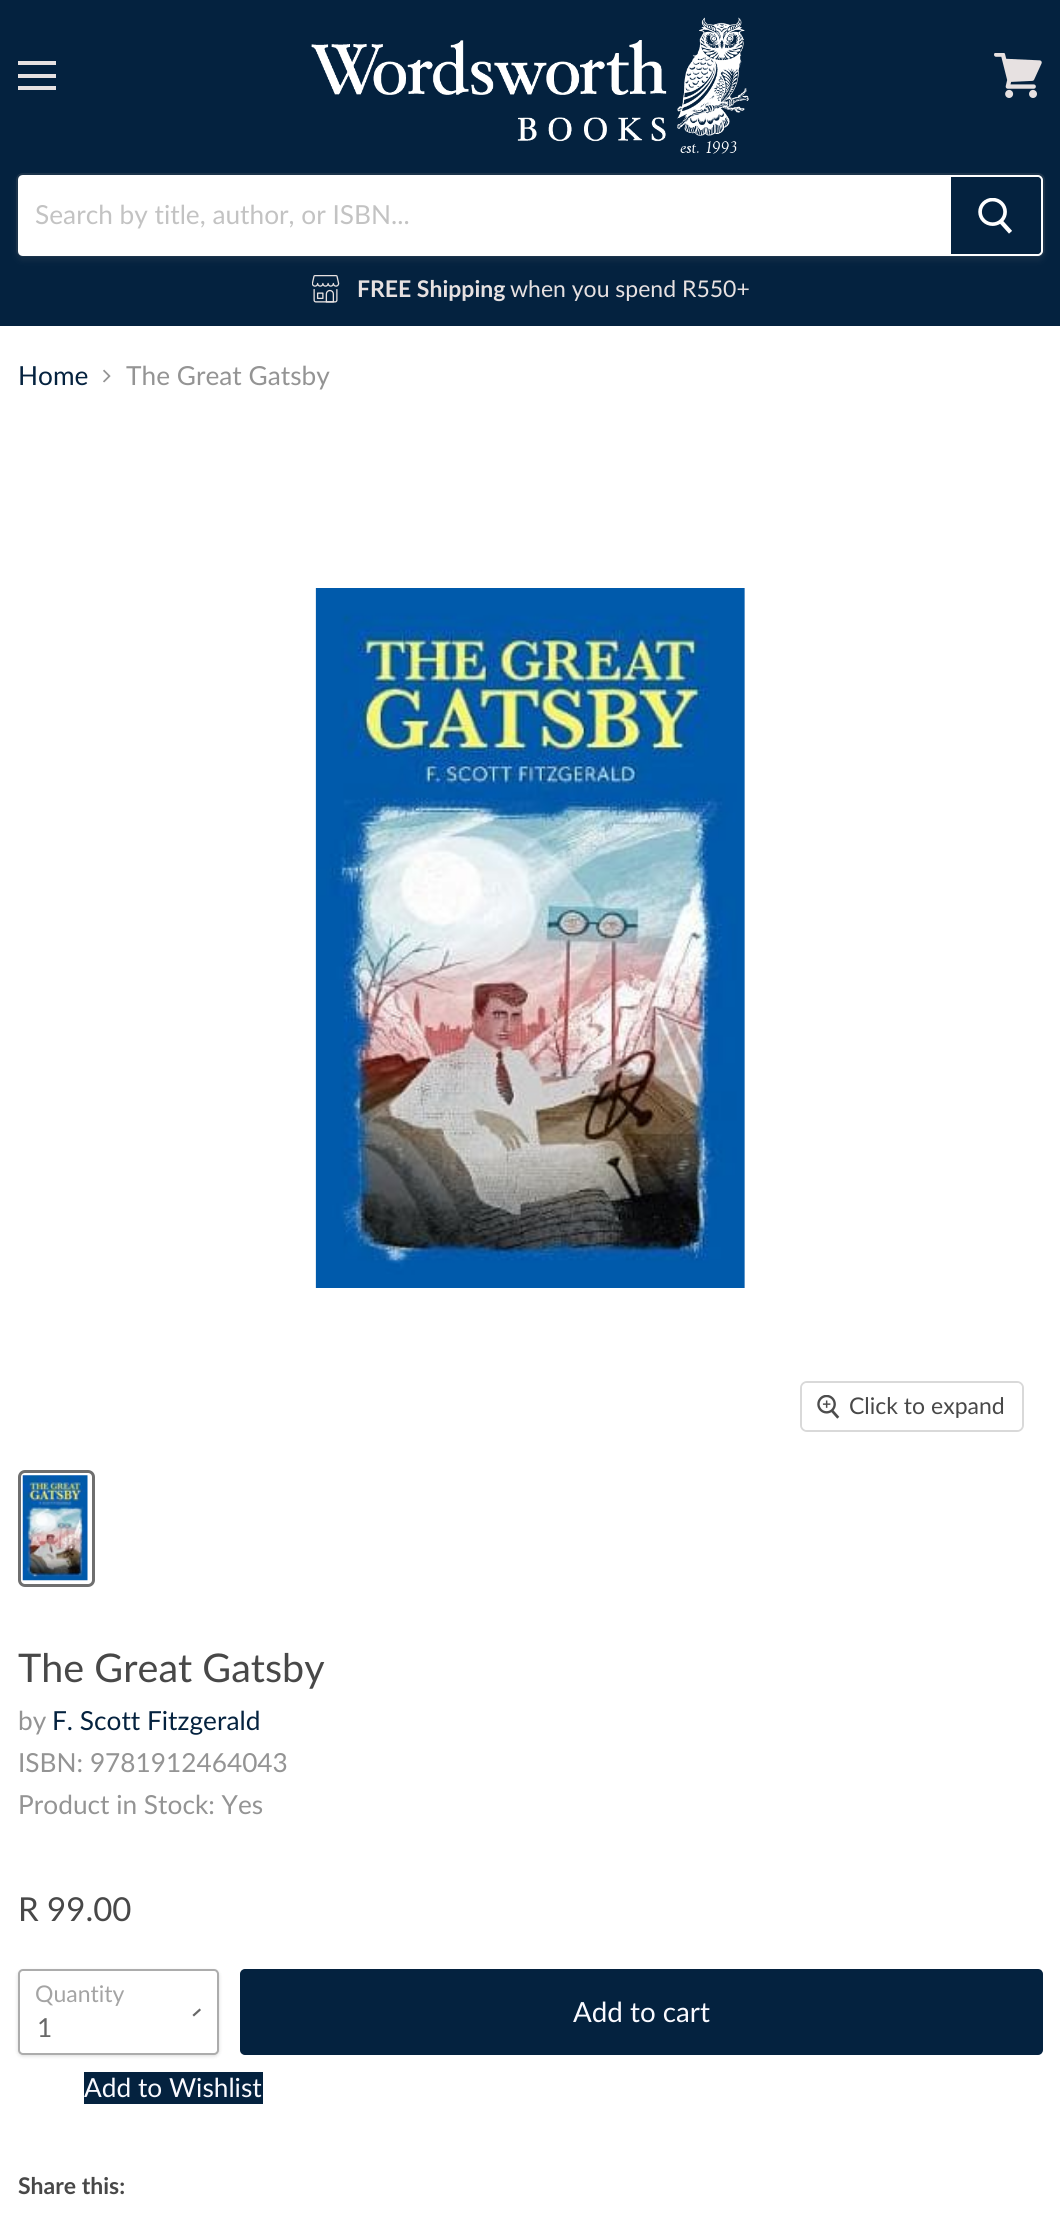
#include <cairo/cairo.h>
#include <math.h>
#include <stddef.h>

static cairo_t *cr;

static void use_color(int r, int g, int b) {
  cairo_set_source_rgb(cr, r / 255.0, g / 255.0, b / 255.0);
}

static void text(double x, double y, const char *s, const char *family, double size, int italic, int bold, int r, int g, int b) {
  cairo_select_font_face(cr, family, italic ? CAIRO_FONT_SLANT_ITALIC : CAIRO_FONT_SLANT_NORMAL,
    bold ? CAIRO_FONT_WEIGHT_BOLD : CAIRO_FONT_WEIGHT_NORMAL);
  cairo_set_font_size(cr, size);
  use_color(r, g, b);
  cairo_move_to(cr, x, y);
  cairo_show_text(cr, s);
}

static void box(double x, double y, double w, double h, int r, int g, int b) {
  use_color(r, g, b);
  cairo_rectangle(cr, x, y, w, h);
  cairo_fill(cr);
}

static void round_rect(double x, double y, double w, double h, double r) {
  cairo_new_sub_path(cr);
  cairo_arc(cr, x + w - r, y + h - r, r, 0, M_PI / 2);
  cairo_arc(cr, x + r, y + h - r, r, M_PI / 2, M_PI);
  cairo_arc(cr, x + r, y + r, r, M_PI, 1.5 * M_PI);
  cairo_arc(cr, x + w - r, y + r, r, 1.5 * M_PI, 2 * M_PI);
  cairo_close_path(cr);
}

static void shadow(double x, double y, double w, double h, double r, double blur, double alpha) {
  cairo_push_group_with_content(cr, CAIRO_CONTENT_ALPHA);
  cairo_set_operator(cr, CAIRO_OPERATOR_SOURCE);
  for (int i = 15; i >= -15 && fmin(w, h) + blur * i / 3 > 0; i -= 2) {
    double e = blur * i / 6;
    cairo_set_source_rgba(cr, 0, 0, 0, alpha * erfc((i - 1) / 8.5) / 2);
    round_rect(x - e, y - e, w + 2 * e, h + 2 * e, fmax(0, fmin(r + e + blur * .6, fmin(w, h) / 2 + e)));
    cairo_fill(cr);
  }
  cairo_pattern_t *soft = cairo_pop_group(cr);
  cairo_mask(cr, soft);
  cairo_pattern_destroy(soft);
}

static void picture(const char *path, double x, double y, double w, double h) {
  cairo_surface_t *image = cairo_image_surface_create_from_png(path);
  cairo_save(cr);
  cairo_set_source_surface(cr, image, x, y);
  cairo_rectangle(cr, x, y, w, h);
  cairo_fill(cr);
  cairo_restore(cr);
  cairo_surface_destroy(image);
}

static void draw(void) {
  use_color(255, 255, 255);
  cairo_paint(cr);
  box(0, 0, 1060, 326, 4, 34, 63);
  box(18, 61, 38, 4, 231, 225, 225);
  box(18, 74, 38, 4, 231, 225, 225);
  box(18, 86, 38, 4, 231, 225, 225);
  picture("img_01.png", 311, 17, 438, 137);
  picture("img_02.png", 994, 53, 48, 45);
  cairo_save(cr);
  cairo_set_fill_rule(cr, CAIRO_FILL_RULE_EVEN_ODD);
  cairo_new_path(cr);
  cairo_move_to(cr, 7, 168);
  cairo_line_to(cr, 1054, 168);
  cairo_line_to(cr, 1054, 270);
  cairo_line_to(cr, 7, 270);
  cairo_close_path(cr);
  cairo_move_to(cr, 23, 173);
  cairo_line_to(cr, 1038, 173);
  cairo_curve_to(cr, 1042, 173, 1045, 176, 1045, 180);
  cairo_line_to(cr, 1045, 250);
  cairo_curve_to(cr, 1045, 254, 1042, 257, 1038, 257);
  cairo_line_to(cr, 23, 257);
  cairo_curve_to(cr, 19, 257, 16, 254, 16, 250);
  cairo_line_to(cr, 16, 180);
  cairo_curve_to(cr, 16, 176, 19, 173, 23, 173);
  cairo_close_path(cr);
  cairo_clip(cr);
  use_color(128, 128, 128);
  shadow(16, 177, 1029, 84, 7, 2.5, 0.11);
  cairo_restore(cr);
  round_rect(17, 174, 1027, 82, 6);
  cairo_set_source_rgba(cr, 0.502, 0.502, 0.502, 0.2);
  cairo_stroke(cr);
  use_color(255, 255, 255);
  cairo_new_path(cr);
  cairo_move_to(cr, 23, 175);
  cairo_line_to(cr, 949, 175);
  cairo_line_to(cr, 949, 256);
  cairo_line_to(cr, 23, 256);
  cairo_curve_to(cr, 20, 256, 18, 254, 18, 251);
  cairo_line_to(cr, 18, 180);
  cairo_curve_to(cr, 18, 177, 20, 175, 23, 175);
  cairo_close_path(cr);
  cairo_fill(cr);
  use_color(4, 34, 63);
  cairo_new_path(cr);
  cairo_move_to(cr, 950, 176);
  cairo_line_to(cr, 1038, 176);
  cairo_curve_to(cr, 1040, 176, 1042, 178, 1042, 180);
  cairo_line_to(cr, 1042, 251);
  cairo_curve_to(cr, 1042, 253, 1040, 255, 1038, 255);
  cairo_line_to(cr, 950, 255);
  cairo_close_path(cr);
  cairo_fill_preserve(cr);
  use_color(255, 255, 255);
  cairo_stroke(cr);
  picture("img_03.png", 978, 198, 34, 36);
  picture("img_04.png", 312, 275, 28, 28);
  picture("img_05.png", 103, 369, 8, 14);
  picture("img_06.png", 315, 588, 430, 700);
  round_rect(801, 1382, 222, 49, 6);
  use_color(217, 217, 217);
  cairo_stroke(cr);
  cairo_set_source_rgba(cr, 1, 1, 1, 0.9);
  round_rect(802, 1383, 220, 47, 5);
  cairo_fill(cr);
  picture("img_07.png", 817, 1395, 23, 24);
  round_rect(19.5, 1471.5, 74, 114, 5.5);
  use_color(111, 111, 111);
  cairo_set_line_width(cr, 3);
  cairo_stroke(cr);
  picture("img_08.png", 22, 1475, 66, 106);
  use_color(0, 0, 0);
  shadow(18, 1971, 201, 85, 5, 2, 0.15);
  use_color(255, 255, 255);
  round_rect(19, 1970, 199, 84, 4);
  cairo_fill_preserve(cr);
  use_color(172, 172, 172);
  cairo_set_line_width(cr, 2);
  cairo_stroke(cr);
  cairo_new_path(cr);
  cairo_move_to(cr, 194, 2015);
  cairo_line_to(cr, 199.5, 2010);
  use_color(104, 104, 104);
  cairo_set_line_width(cr, 2.2);
  cairo_set_line_cap(cr, CAIRO_LINE_CAP_SQUARE);
  cairo_stroke(cr);
  use_color(4, 34, 63);
  round_rect(241, 1970, 801, 84, 4);
  cairo_fill_preserve(cr);
  cairo_set_line_width(cr, 2);
  cairo_set_line_cap(cr, CAIRO_LINE_CAP_BUTT);
  cairo_stroke(cr);
  box(84, 2072, 179, 32, 4, 34, 63);
  text(35, 224, "Search by title, author, or ISBN...", "Lato", 26.25, 0, 0, 195, 195, 195);
  text(357, 297, "FREE Shipping", "Lato", 23, 0, 1, 231, 225, 225);
  text(510, 297, "when you spend R550+", "Lato", 23, 0, 0, 231, 225, 225);
  text(18, 385, "Home", "Lato", 26.25, 0, 0, 4, 34, 63);
  text(126, 385, "The Great Gatsby", "Lato", 26.25, 0, 0, 148, 148, 148);
  text(849, 1414, "Click to expand", "Lato", 23, 0, 0, 72, 72, 72);
  text(18, 1682, "The Great Gatsby", "Lato", 39.5, 0, 0, 72, 72, 72);
  text(18, 1730, "by", "Lato", 26.25, 0, 0, 148, 148, 148);
  text(52, 1730, "F. Scott Fitzgerald", "Lato", 26.25, 0, 0, 4, 34, 63);
  text(18, 1772, "ISBN: 9781912464043", "Lato", 26.25, 0, 0, 148, 148, 148);
  text(18, 1814, "Product in Stock: Yes", "Lato", 26.25, 0, 0, 148, 148, 148);
  text(18, 1921, "R 99.00", "Lato", 33, 0, 0, 72, 72, 72);
  text(35, 2002, "Quantity", "Lato", 23, 0, 0, 164, 164, 164);
  text(37, 2037, "1", "Lato", 26.25, 0, 0, 104, 104, 104);
  text(573, 2022, "Add to cart", "Lato", 27.75, 0, 0, 250, 250, 255);
  text(84, 2097, "Add to Wishlist", "Lato", 26.25, 0, 0, 250, 250, 255);
  text(18, 2194, "Share this:", "Lato", 23, 0, 1, 72, 72, 72);
}

int main(void) {
  cairo_surface_t *surface = cairo_image_surface_create(CAIRO_FORMAT_RGB24, 1060, 2218);
  cr = cairo_create(surface);
  cairo_font_options_t *options = cairo_font_options_create();
  cairo_font_options_set_hint_metrics(options, CAIRO_HINT_METRICS_OFF);
  cairo_font_options_set_hint_style(options, CAIRO_HINT_STYLE_NONE);
  cairo_set_font_options(cr, options);
  cairo_set_miter_limit(cr, 4);
  draw();
  cairo_surface_write_to_png(surface, "out.png");
  cairo_font_options_destroy(options);
  cairo_destroy(cr);
  cairo_surface_destroy(surface);
  return 0;
}
